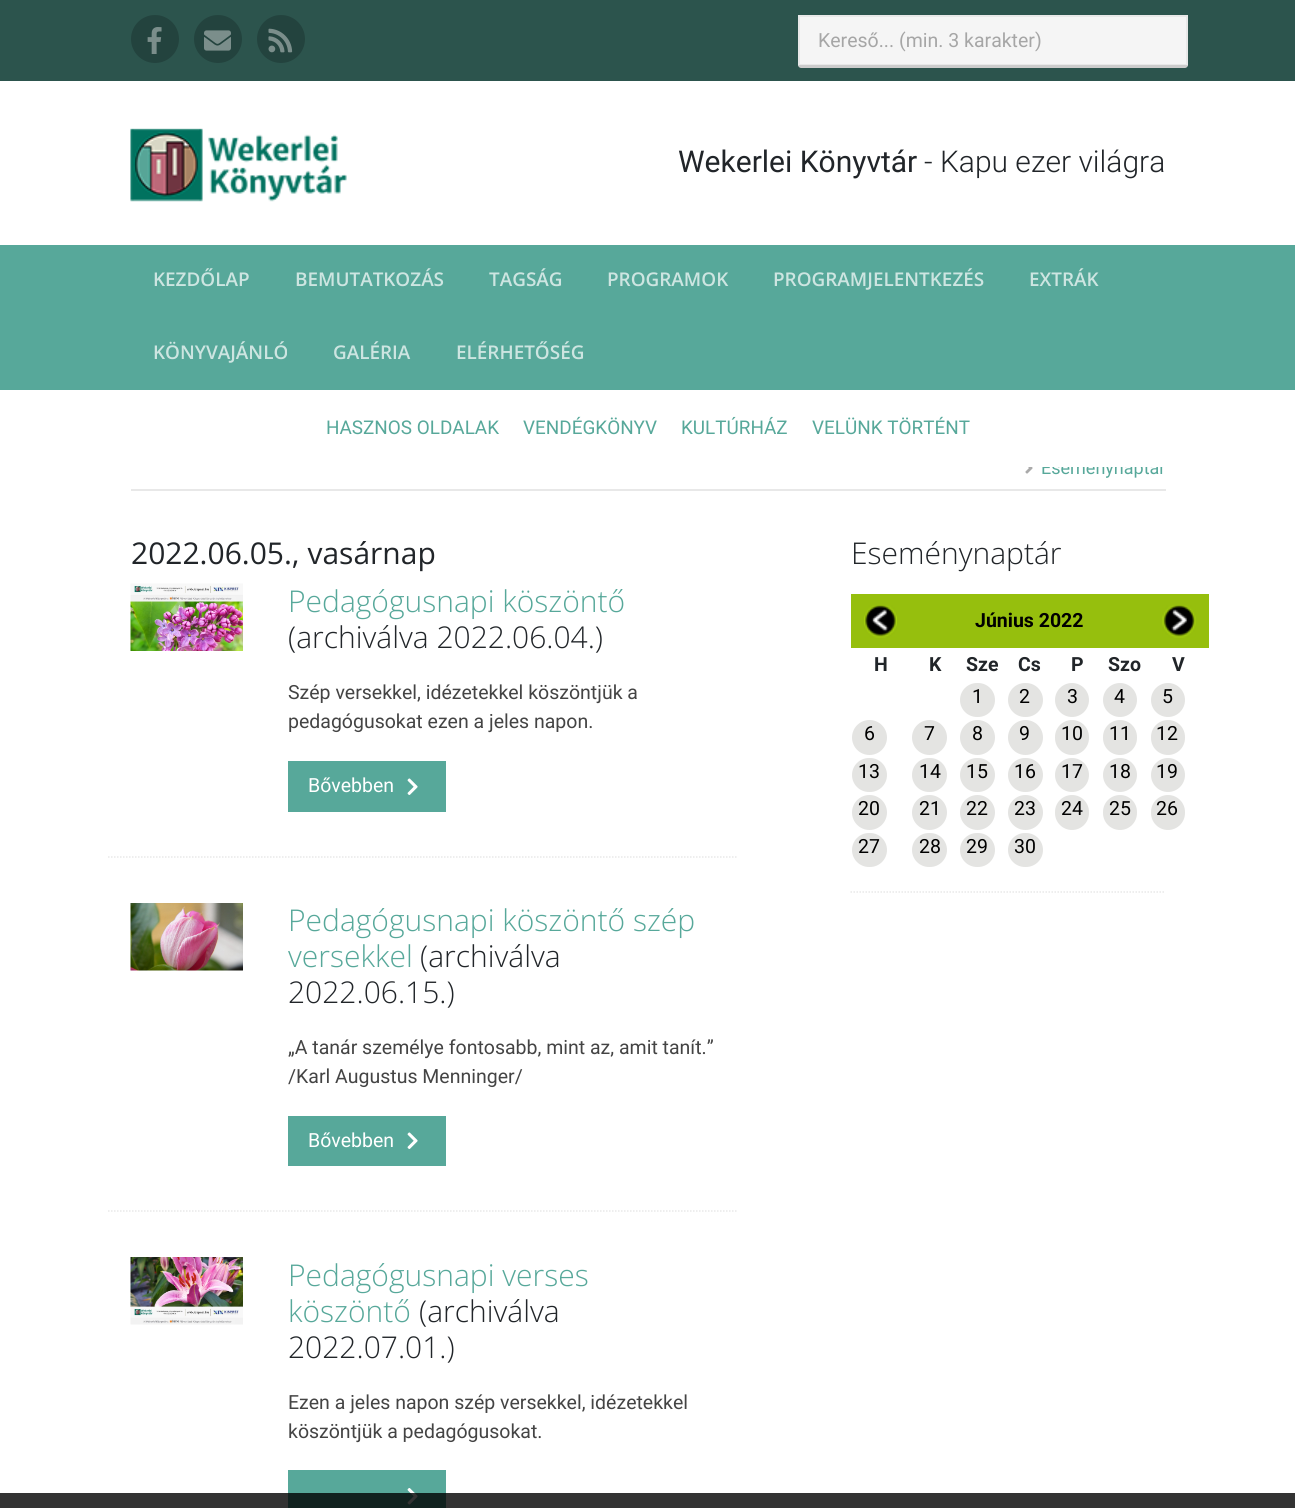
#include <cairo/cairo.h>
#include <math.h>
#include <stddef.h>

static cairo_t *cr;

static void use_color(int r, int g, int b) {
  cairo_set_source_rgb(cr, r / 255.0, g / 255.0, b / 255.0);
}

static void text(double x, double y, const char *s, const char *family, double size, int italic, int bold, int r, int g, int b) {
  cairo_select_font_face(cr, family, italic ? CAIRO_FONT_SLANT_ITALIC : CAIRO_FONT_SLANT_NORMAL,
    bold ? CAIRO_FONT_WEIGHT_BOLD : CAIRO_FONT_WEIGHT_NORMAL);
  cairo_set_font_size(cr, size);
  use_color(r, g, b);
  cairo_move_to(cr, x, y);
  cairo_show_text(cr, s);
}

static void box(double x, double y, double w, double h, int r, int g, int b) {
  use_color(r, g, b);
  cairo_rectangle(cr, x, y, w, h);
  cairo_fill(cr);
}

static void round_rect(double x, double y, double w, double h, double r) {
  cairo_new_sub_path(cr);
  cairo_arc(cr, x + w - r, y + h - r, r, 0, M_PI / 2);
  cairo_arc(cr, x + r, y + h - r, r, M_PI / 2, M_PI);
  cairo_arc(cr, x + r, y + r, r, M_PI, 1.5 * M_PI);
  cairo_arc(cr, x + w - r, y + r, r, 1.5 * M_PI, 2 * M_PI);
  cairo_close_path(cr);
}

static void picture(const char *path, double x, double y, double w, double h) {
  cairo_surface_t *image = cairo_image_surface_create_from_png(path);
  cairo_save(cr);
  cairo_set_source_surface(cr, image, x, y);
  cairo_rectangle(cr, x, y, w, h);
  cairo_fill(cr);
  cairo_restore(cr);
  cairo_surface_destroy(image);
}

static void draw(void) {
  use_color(255, 255, 255);
  cairo_paint(cr);
  box(0, 0, 1295, 81, 44, 84, 77);
  use_color(35, 67, 62);
  cairo_arc(cr, 155, 39, 24, 0, 2 * M_PI);
  cairo_fill(cr);
  picture("img_01.png", 147, 27, 15, 27);
  cairo_arc(cr, 218, 39, 24, 0, 2 * M_PI);
  cairo_fill(cr);
  picture("img_02.png", 204, 30, 27, 21);
  cairo_arc(cr, 281, 39, 24, 0, 2 * M_PI);
  cairo_fill(cr);
  picture("img_03.png", 268, 28, 25, 25);
  use_color(245, 245, 245);
  cairo_rectangle(cr, 799, 16, 388, 49);
  cairo_fill_preserve(cr);
  use_color(232, 232, 232);
  cairo_stroke(cr);
  use_color(204, 204, 204);
  cairo_new_path(cr);
  cairo_move_to(cr, 798, 65);
  cairo_line_to(cr, 1188, 65);
  cairo_curve_to(cr, 1188, 66.5, 1186.5, 68, 1185, 68);
  cairo_line_to(cr, 801, 68);
  cairo_curve_to(cr, 799.5, 68, 798, 66.5, 798, 65);
  cairo_close_path(cr);
  cairo_fill(cr);
  picture("img_04.png", 130, 128, 217, 74);
  box(0, 245, 1295, 145, 87, 168, 154);
  box(131, 489, 1035, 2, 232, 232, 232);
  picture("img_05.png", 1025, 467, 8, 7);
  cairo_new_path(cr);
  cairo_move_to(cr, 108, 857);
  cairo_line_to(cr, 738, 857);
  cairo_set_line_width(cr, 1.5);
  cairo_set_dash(cr, (double[]){1.5, 1.5}, 2, 0);
  cairo_stroke(cr);
  picture("img_06.png", 130, 583, 113, 68);
  box(288, 761, 158, 51, 87, 168, 154);
  picture("img_07.png", 407, 778, 11, 17);
  cairo_new_path(cr);
  cairo_move_to(cr, 108, 1211);
  cairo_line_to(cr, 738, 1211);
  use_color(232, 232, 232);
  cairo_stroke(cr);
  picture("img_08.png", 130, 903, 113, 68);
  box(288, 1116, 158, 50, 87, 168, 154);
  picture("img_07.png", 407, 1132, 11, 17);
  picture("img_09.png", 130, 1257, 113, 68);
  box(288, 1470, 158, 38, 87, 168, 154);
  picture("img_10.png", 407, 1488, 11, 17);
  cairo_new_path(cr);
  cairo_move_to(cr, 850.5, 892);
  cairo_line_to(cr, 1165.5, 892);
  use_color(232, 232, 232);
  cairo_stroke(cr);
  box(851, 594, 358, 54, 150, 191, 13);
  picture("img_11.png", 864, 605, 33, 33);
  picture("img_12.png", 1162, 605, 34, 33);
  use_color(228, 228, 226);
  round_rect(960, 683, 35, 34, 17);
  cairo_fill(cr);
  round_rect(1008, 683, 35, 34, 17);
  cairo_fill(cr);
  cairo_arc(cr, 1072, 700, 17, 0, 2 * M_PI);
  cairo_fill(cr);
  cairo_arc(cr, 1120, 700, 17, 0, 2 * M_PI);
  cairo_fill(cr);
  cairo_arc(cr, 1168, 700, 17, 0, 2 * M_PI);
  cairo_fill(cr);
  cairo_arc(cr, 869.5, 737.5, 17.5, 0, 2 * M_PI);
  cairo_fill(cr);
  cairo_arc(cr, 929.5, 737.5, 17.5, 0, 2 * M_PI);
  cairo_fill(cr);
  cairo_arc(cr, 977.5, 737.5, 17.5, 0, 2 * M_PI);
  cairo_fill(cr);
  cairo_arc(cr, 1025.5, 737.5, 17.5, 0, 2 * M_PI);
  cairo_fill(cr);
  round_rect(1055, 720, 34, 35, 17);
  cairo_fill(cr);
  round_rect(1103, 720, 34, 35, 17);
  cairo_fill(cr);
  round_rect(1151, 720, 34, 35, 17);
  cairo_fill(cr);
  round_rect(852, 758, 35, 34, 17);
  cairo_fill(cr);
  round_rect(912, 758, 35, 34, 17);
  cairo_fill(cr);
  round_rect(960, 758, 35, 34, 17);
  cairo_fill(cr);
  round_rect(1008, 758, 35, 34, 17);
  cairo_fill(cr);
  cairo_arc(cr, 1072, 775, 17, 0, 2 * M_PI);
  cairo_fill(cr);
  cairo_arc(cr, 1120, 775, 17, 0, 2 * M_PI);
  cairo_fill(cr);
  cairo_arc(cr, 1168, 775, 17, 0, 2 * M_PI);
  cairo_fill(cr);
  cairo_arc(cr, 869.5, 812.5, 17.5, 0, 2 * M_PI);
  cairo_fill(cr);
  cairo_arc(cr, 929.5, 812.5, 17.5, 0, 2 * M_PI);
  cairo_fill(cr);
  cairo_arc(cr, 977.5, 812.5, 17.5, 0, 2 * M_PI);
  cairo_fill(cr);
  cairo_arc(cr, 1025.5, 812.5, 17.5, 0, 2 * M_PI);
  cairo_fill(cr);
  round_rect(1055, 795, 34, 35, 17);
  cairo_fill(cr);
  round_rect(1103, 795, 34, 35, 17);
  cairo_fill(cr);
  round_rect(1151, 795, 34, 35, 17);
  cairo_fill(cr);
  round_rect(852, 833, 35, 34, 17);
  cairo_fill(cr);
  round_rect(912, 833, 35, 34, 17);
  cairo_fill(cr);
  round_rect(960, 833, 35, 34, 17);
  cairo_fill(cr);
  round_rect(1008, 833, 35, 34, 17);
  cairo_fill(cr);
  cairo_set_source_rgba(cr, 0, 0, 0, 0.8);
  cairo_rectangle(cr, 0, 1493, 1295, 15);
  cairo_fill(cr);
  text(818, 47, "Kereső... (min. 3 karakter)", "Roboto", 19.5, 0, 0, 166, 166, 166);
  text(678, 172, "Wekerlei Könyvtár", "Roboto", 30, 0, 0, 33, 37, 41);
  text(924, 172, "- Kapu ezer világra", "Roboto Light", 30, 0, 0, 33, 37, 41);
  text(153, 286, "KEZDŐLAP", "Open Sans SemiBold", 18.9, 0, 0, 205, 229, 225);
  text(295, 286, "BEMUTATKOZÁS", "Open Sans SemiBold", 18.9, 0, 0, 205, 229, 225);
  text(489, 286, "TAGSÁG", "Open Sans SemiBold", 18.9, 0, 0, 205, 229, 225);
  text(607, 286, "PROGRAMOK", "Open Sans SemiBold", 18.9, 0, 0, 205, 229, 225);
  text(773, 286, "PROGRAMJELENTKEZÉS", "Open Sans SemiBold", 18.9, 0, 0, 205, 229, 225);
  text(1029, 286, "EXTRÁK", "Open Sans SemiBold", 18.9, 0, 0, 205, 229, 225);
  text(153, 359, "KÖNYVAJÁNLÓ", "Open Sans SemiBold", 18.9, 0, 0, 205, 229, 225);
  text(333, 359, "GALÉRIA", "Open Sans SemiBold", 18.9, 0, 0, 205, 229, 225);
  text(456, 359, "ELÉRHETŐSÉG", "Open Sans SemiBold", 18.9, 0, 0, 205, 229, 225);
  text(326, 434, "HASZNOS OLDALAK", "Roboto", 18.9, 0, 0, 87, 168, 154);
  text(523, 434, "VENDÉGKÖNYV", "Roboto", 18.9, 0, 0, 87, 168, 154);
  text(681, 434, "KULTÚRHÁZ", "Roboto", 18.9, 0, 0, 87, 168, 154);
  text(812, 434, "VELÜNK TÖRTÉNT", "Roboto", 18.9, 0, 0, 87, 168, 154);
  text(1041, 474, "Eseménynaptár", "Roboto", 18, 0, 0, 87, 168, 154);
  box(1042, 460, 124, 7, 255, 255, 255);
  text(131, 564, "2022.06.05., vasárnap", "Open Sans", 30, 0, 0, 33, 37, 41);
  text(288, 612, "Pedagógusnapi köszöntő", "Open Sans Light", 30, 0, 0, 87, 168, 154);
  text(288, 648, "(archiválva 2022.06.04.)", "Open Sans Light", 30, 0, 0, 33, 37, 41);
  text(288, 699, "Szép versekkel, idézetekkel köszöntjük a", "Roboto", 19.5, 0, 0, 68, 68, 68);
  text(288, 728, "pedagógusokat ezen a jeles napon.", "Roboto", 19.5, 0, 0, 68, 68, 68);
  text(308, 792, "Bővebben", "Roboto", 19.5, 0, 0, 255, 255, 255);
  text(288, 931, "Pedagógusnapi köszöntő szép", "Open Sans Light", 30, 0, 0, 87, 168, 154);
  text(288, 967, "versekkel", "Open Sans Light", 30, 0, 0, 87, 168, 154);
  text(420, 967, "(archiválva", "Open Sans Light", 30, 0, 0, 33, 37, 41);
  text(288, 1003, "2022.06.15.)", "Open Sans Light", 30, 0, 0, 33, 37, 41);
  text(288, 1054, "„A tanár személye fontosabb, mint az, amit tanít.”", "Roboto", 19.5, 0, 0, 68, 68, 68);
  text(288, 1083, "/Karl Augustus Menninger/", "Roboto", 19.5, 0, 0, 68, 68, 68);
  text(308, 1147, "Bővebben", "Roboto", 19.5, 0, 0, 255, 255, 255);
  text(288, 1286, "Pedagógusnapi verses", "Open Sans Light", 30, 0, 0, 87, 168, 154);
  text(288, 1322, "köszöntő", "Open Sans Light", 30, 0, 0, 87, 168, 154);
  text(419, 1322, "(archiválva", "Open Sans Light", 30, 0, 0, 33, 37, 41);
  text(288, 1358, "2022.07.01.)", "Open Sans Light", 30, 0, 0, 33, 37, 41);
  text(288, 1409, "Ezen a jeles napon szép versekkel, idézetekkel", "Roboto", 19.5, 0, 0, 68, 68, 68);
  text(288, 1438, "köszöntjük a pedagógusokat.", "Roboto", 19.5, 0, 0, 68, 68, 68);
  text(851, 564, "Eseménynaptár", "Open Sans Light", 30, 0, 0, 33, 37, 41);
  text(975, 627, "Június 2022", "Roboto", 19.5, 0, 1, 0, 0, 0);
  text(874, 671, "H", "Roboto", 19.5, 0, 1, 33, 37, 41);
  text(929, 671, "K", "Roboto", 19.5, 0, 1, 33, 37, 41);
  text(966, 671, "Sze", "Roboto", 19.5, 0, 1, 33, 37, 41);
  text(1018, 671, "Cs", "Roboto", 19.5, 0, 1, 33, 37, 41);
  text(1071, 671, "P", "Roboto", 19.5, 0, 1, 33, 37, 41);
  text(1108, 671, "Szo", "Roboto", 19.5, 0, 1, 33, 37, 41);
  text(1172, 671, "V", "Roboto", 19.5, 0, 1, 33, 37, 41);
  text(972, 703, "1", "Roboto", 19.5, 0, 0, 0, 0, 0);
  text(1019, 703, "2", "Roboto", 19.5, 0, 0, 0, 0, 0);
  text(1067, 703, "3", "Roboto", 19.5, 0, 0, 0, 0, 0);
  text(1114, 703, "4", "Roboto", 19.5, 0, 0, 0, 0, 0);
  text(1162, 703, "5", "Roboto", 19.5, 0, 0, 0, 0, 0);
  text(864, 740, "6", "Roboto", 19.5, 0, 0, 0, 0, 0);
  text(924, 740, "7", "Roboto", 19.5, 0, 0, 0, 0, 0);
  text(972, 740, "8", "Roboto", 19.5, 0, 0, 0, 0, 0);
  text(1019, 740, "9", "Roboto", 19.5, 0, 0, 0, 0, 0);
  text(1061, 740, "10", "Roboto", 19.5, 0, 0, 0, 0, 0);
  text(1109, 740, "11", "Roboto", 19.5, 0, 0, 0, 0, 0);
  text(1156, 740, "12", "Roboto", 19.5, 0, 0, 0, 0, 0);
  text(858, 778, "13", "Roboto", 19.5, 0, 0, 0, 0, 0);
  text(919, 778, "14", "Roboto", 19.5, 0, 0, 0, 0, 0);
  text(966, 778, "15", "Roboto", 19.5, 0, 0, 0, 0, 0);
  text(1014, 778, "16", "Roboto", 19.5, 0, 0, 0, 0, 0);
  text(1061, 778, "17", "Roboto", 19.5, 0, 0, 0, 0, 0);
  text(1109, 778, "18", "Roboto", 19.5, 0, 0, 0, 0, 0);
  text(1156, 778, "19", "Roboto", 19.5, 0, 0, 0, 0, 0);
  text(858, 815, "20", "Roboto", 19.5, 0, 0, 0, 0, 0);
  text(919, 815, "21", "Roboto", 19.5, 0, 0, 0, 0, 0);
  text(966, 815, "22", "Roboto", 19.5, 0, 0, 0, 0, 0);
  text(1014, 815, "23", "Roboto", 19.5, 0, 0, 0, 0, 0);
  text(1061, 815, "24", "Roboto", 19.5, 0, 0, 0, 0, 0);
  text(1109, 815, "25", "Roboto", 19.5, 0, 0, 0, 0, 0);
  text(1156, 815, "26", "Roboto", 19.5, 0, 0, 0, 0, 0);
  text(858, 853, "27", "Roboto", 19.5, 0, 0, 0, 0, 0);
  text(919, 853, "28", "Roboto", 19.5, 0, 0, 0, 0, 0);
  text(966, 853, "29", "Roboto", 19.5, 0, 0, 0, 0, 0);
  text(1014, 853, "30", "Roboto", 19.5, 0, 0, 0, 0, 0);
}

int main(void) {
  cairo_surface_t *surface = cairo_image_surface_create(CAIRO_FORMAT_RGB24, 1295, 1508);
  cr = cairo_create(surface);
  cairo_font_options_t *options = cairo_font_options_create();
  cairo_font_options_set_hint_metrics(options, CAIRO_HINT_METRICS_OFF);
  cairo_font_options_set_hint_style(options, CAIRO_HINT_STYLE_NONE);
  cairo_set_font_options(cr, options);
  cairo_set_miter_limit(cr, 4);
  draw();
  cairo_surface_write_to_png(surface, "out.png");
  cairo_font_options_destroy(options);
  cairo_destroy(cr);
  cairo_surface_destroy(surface);
  return 0;
}
